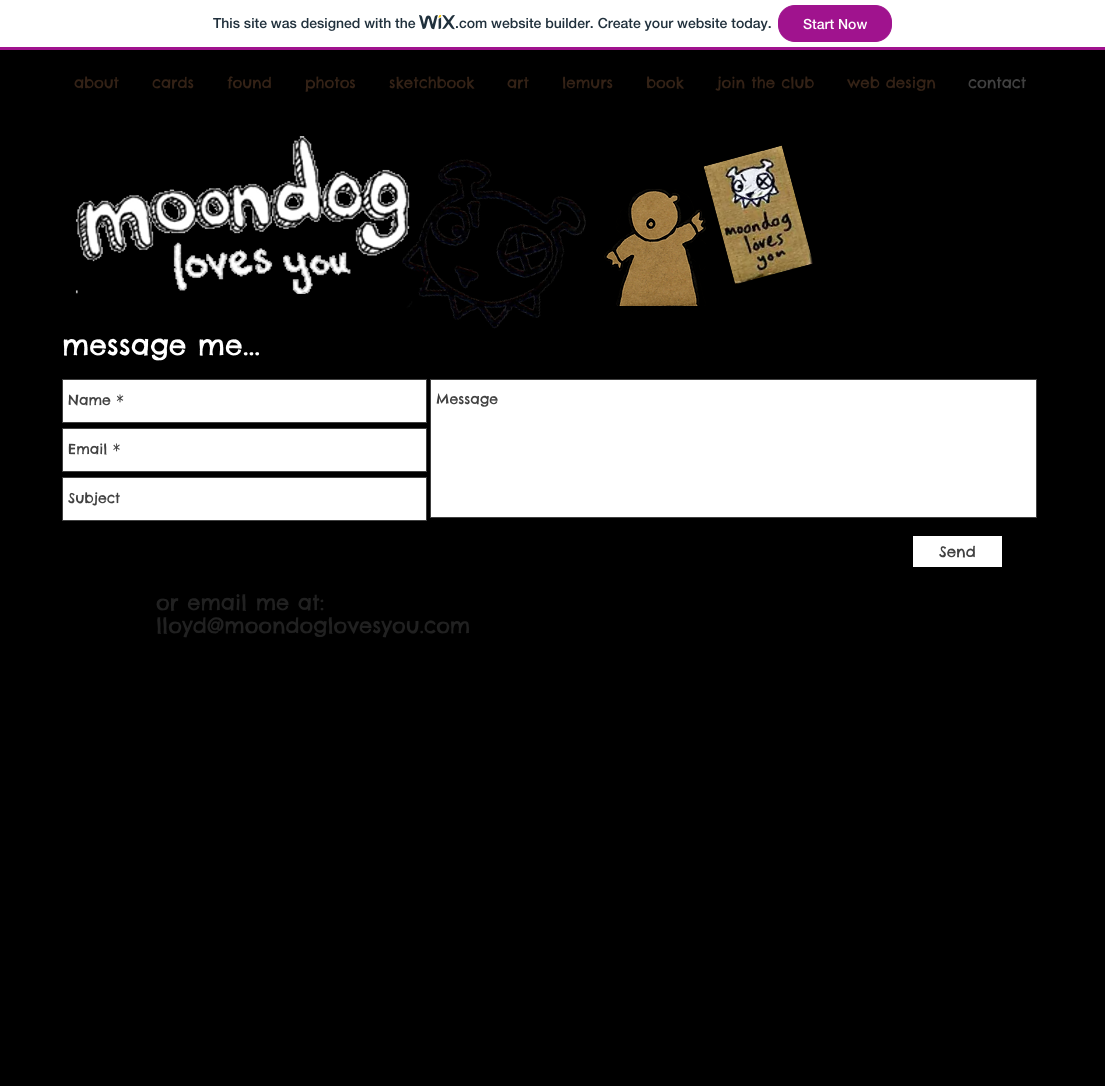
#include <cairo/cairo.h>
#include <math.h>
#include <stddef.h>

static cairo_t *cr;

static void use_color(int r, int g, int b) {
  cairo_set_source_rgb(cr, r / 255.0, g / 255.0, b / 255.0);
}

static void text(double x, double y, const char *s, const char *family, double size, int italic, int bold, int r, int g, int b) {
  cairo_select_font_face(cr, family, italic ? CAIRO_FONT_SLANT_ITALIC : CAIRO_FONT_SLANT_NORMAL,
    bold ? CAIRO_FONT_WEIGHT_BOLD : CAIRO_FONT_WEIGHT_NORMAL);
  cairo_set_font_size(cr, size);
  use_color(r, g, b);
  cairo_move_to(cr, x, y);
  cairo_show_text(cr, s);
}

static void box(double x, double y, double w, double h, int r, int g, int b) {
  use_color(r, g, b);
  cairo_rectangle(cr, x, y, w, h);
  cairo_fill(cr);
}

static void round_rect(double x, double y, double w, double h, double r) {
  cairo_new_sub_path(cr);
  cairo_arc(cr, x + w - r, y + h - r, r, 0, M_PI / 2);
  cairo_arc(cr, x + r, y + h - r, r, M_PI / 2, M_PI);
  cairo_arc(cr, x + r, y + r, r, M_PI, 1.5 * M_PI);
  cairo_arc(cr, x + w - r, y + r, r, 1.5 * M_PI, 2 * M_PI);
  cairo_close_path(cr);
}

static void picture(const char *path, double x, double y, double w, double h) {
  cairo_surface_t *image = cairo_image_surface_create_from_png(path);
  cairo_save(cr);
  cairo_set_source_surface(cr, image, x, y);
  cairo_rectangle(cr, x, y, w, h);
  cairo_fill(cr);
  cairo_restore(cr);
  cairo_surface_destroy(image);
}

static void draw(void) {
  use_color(255, 255, 255);
  cairo_paint(cr);
  box(0, 47, 1105, 3, 160, 19, 142);
  picture("img_01.png", 419, 15, 36, 15);
  round_rect(778.5, 5.5, 113, 36, 16.5);
  cairo_fill_preserve(cr);
  cairo_set_line_width(cr, 1);
  cairo_stroke(cr);
  box(0, 50, 1105, 1036, 0, 0, 0);
  picture("img_02.png", 75, 136, 335, 158);
  picture("img_03.png", 402, 159, 184, 170);
  picture("img_05.png", 703, 145, 110, 139);
  picture("img_04.png", 604, 189, 102, 117);
  use_color(255, 255, 255);
  cairo_rectangle(cr, 62.5, 379.5, 364, 43);
  cairo_fill_preserve(cr);
  use_color(65, 65, 65);
  cairo_stroke(cr);
  use_color(255, 255, 255);
  cairo_rectangle(cr, 430.5, 379.5, 606, 138);
  cairo_fill_preserve(cr);
  use_color(65, 65, 65);
  cairo_stroke(cr);
  use_color(255, 255, 255);
  cairo_rectangle(cr, 62.5, 428.5, 364, 43);
  cairo_fill_preserve(cr);
  use_color(65, 65, 65);
  cairo_stroke(cr);
  use_color(255, 255, 255);
  cairo_rectangle(cr, 62.5, 477.5, 364, 43);
  cairo_fill_preserve(cr);
  use_color(65, 65, 65);
  cairo_stroke(cr);
  box(913, 536, 89, 31, 255, 255, 255);
  text(213, 28, "This site was designed with the", "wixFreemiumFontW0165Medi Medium", 14, 0, 0, 32, 48, 60);
  text(455, 28, ".com website builder. Create your website today.", "wixFreemiumFontW0165Medi Medium", 14, 0, 0, 32, 48, 60);
  text(803, 29, "Start Now", "wixFreemiumFontW0165Medi Medium", 14, 0, 0, 255, 255, 255);
  text(74, 88, "about", "Chelsea Market", 15, 0, 0, 52, 34, 22);
  text(152, 88, "cards", "Chelsea Market", 15, 0, 0, 52, 34, 22);
  text(227, 88, "found", "Chelsea Market", 15, 0, 0, 52, 34, 22);
  text(305, 88, "photos", "Chelsea Market", 15, 0, 0, 52, 34, 22);
  text(389, 88, "sketchbook", "Chelsea Market", 15, 0, 0, 52, 34, 22);
  text(507, 88, "art", "Chelsea Market", 15, 0, 0, 52, 34, 22);
  text(562, 88, "lemurs", "Chelsea Market", 15, 0, 0, 52, 34, 22);
  text(646, 88, "book", "Chelsea Market", 15, 0, 0, 52, 34, 22);
  text(717, 88, "join the club", "Chelsea Market", 15, 0, 0, 52, 34, 22);
  text(847, 88, "web design", "Chelsea Market", 15, 0, 0, 52, 34, 22);
  text(968, 88, "contact", "Chelsea Market", 15, 0, 0, 65, 65, 65);
  text(62, 355, "message me...", "Chelsea Market", 28, 0, 0, 255, 255, 255);
  text(68, 405, "Name *", "Chelsea Market", 14, 0, 0, 65, 65, 65);
  text(436, 404, "Message", "Chelsea Market", 14, 0, 0, 65, 65, 65);
  text(68, 454, "Email *", "Chelsea Market", 14, 0, 0, 65, 65, 65);
  text(68, 503, "Subject", "Chelsea Market", 14, 0, 0, 65, 65, 65);
  text(939, 557, "Send", "Chelsea Market", 15, 0, 0, 65, 65, 65);
  text(156, 610, "or email me at:", "Chelsea Market", 21, 0, 0, 33, 33, 33);
  text(156, 633, "lloyd@moondoglovesyou.com", "Chelsea Market", 21, 0, 0, 33, 33, 33);
}

int main(void) {
  cairo_surface_t *surface = cairo_image_surface_create(CAIRO_FORMAT_RGB24, 1105, 1086);
  cr = cairo_create(surface);
  cairo_font_options_t *options = cairo_font_options_create();
  cairo_font_options_set_hint_metrics(options, CAIRO_HINT_METRICS_OFF);
  cairo_font_options_set_hint_style(options, CAIRO_HINT_STYLE_NONE);
  cairo_set_font_options(cr, options);
  cairo_set_miter_limit(cr, 4);
  draw();
  cairo_surface_write_to_png(surface, "out.png");
  cairo_font_options_destroy(options);
  cairo_destroy(cr);
  cairo_surface_destroy(surface);
  return 0;
}
